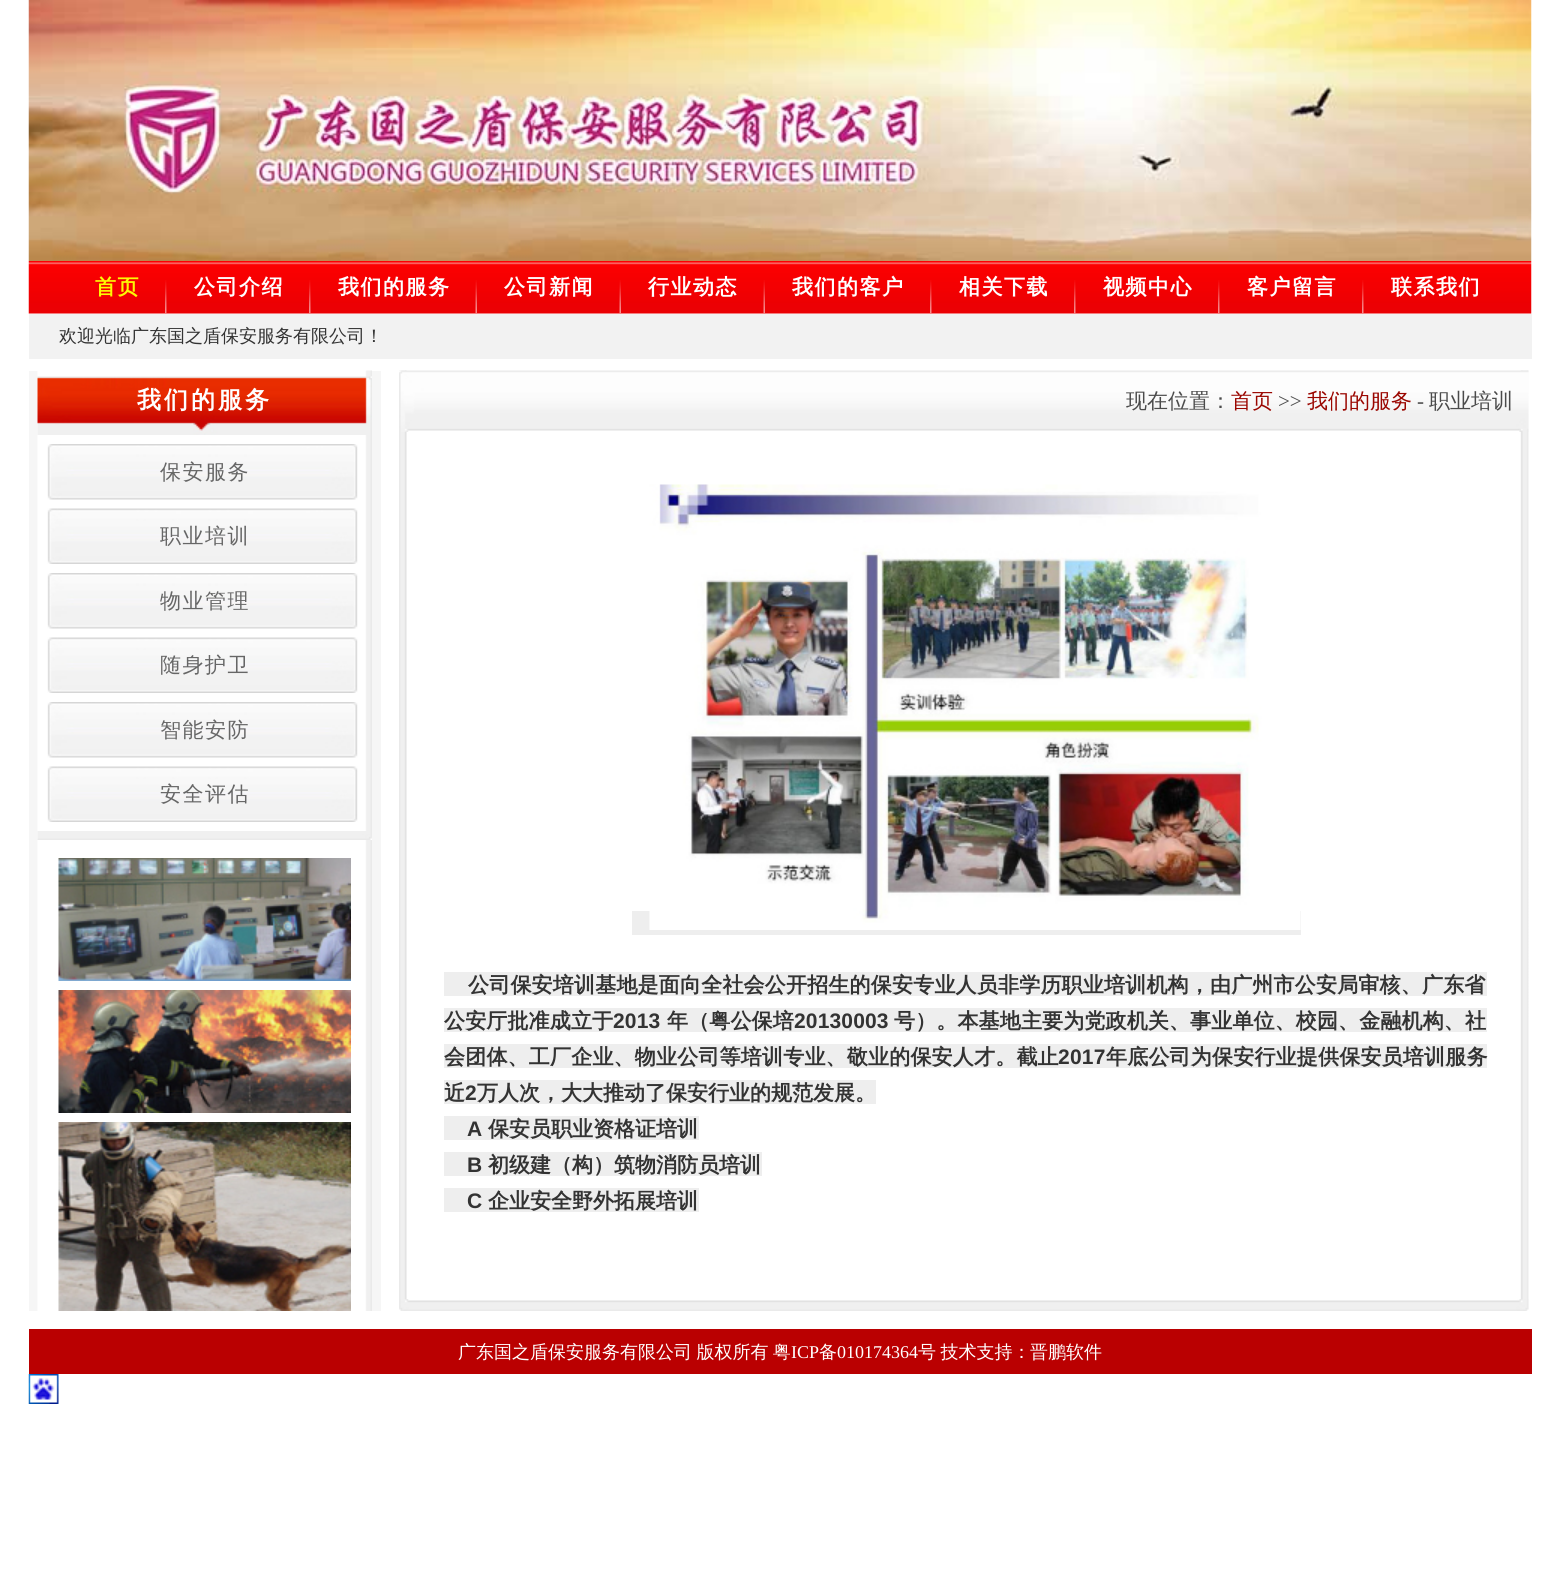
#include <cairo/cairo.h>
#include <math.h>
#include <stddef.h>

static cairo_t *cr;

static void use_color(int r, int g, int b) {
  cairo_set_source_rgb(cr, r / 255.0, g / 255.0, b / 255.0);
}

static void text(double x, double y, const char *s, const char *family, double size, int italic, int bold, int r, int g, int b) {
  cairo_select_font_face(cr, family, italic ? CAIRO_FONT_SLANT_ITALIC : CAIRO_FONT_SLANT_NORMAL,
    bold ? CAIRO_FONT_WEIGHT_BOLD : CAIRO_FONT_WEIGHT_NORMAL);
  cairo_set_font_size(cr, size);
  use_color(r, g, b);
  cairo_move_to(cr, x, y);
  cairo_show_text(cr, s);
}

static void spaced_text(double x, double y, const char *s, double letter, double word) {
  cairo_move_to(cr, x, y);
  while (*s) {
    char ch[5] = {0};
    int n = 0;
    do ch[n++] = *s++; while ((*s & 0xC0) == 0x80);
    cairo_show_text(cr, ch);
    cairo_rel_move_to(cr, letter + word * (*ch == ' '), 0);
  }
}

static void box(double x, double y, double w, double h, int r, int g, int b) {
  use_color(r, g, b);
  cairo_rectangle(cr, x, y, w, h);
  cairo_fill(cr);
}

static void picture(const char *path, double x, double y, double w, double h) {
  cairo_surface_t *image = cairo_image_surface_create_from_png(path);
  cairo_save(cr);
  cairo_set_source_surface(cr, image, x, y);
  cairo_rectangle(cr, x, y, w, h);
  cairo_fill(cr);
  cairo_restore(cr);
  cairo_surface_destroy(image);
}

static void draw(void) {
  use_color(255, 255, 255);
  cairo_paint(cr);
  picture("img_01.png", 28, 0, 1504, 261);
  picture("img_02.png", 28, 261, 1504, 53);
  picture("img_03.png", 165, 280, 2, 34);
  picture("img_03.png", 309, 280, 2, 34);
  picture("img_04.png", 475, 280, 2, 34);
  picture("img_04.png", 619, 280, 2, 34);
  picture("img_04.png", 763, 280, 2, 34);
  picture("img_03.png", 930, 280, 2, 34);
  picture("img_03.png", 1074, 280, 2, 34);
  picture("img_03.png", 1218, 280, 2, 34);
  picture("img_03.png", 1362, 280, 2, 34);
  box(29, 314, 1503, 45, 242, 242, 242);
  box(29, 371, 352, 940, 246, 246, 246);
  picture("img_05.png", 37, 370, 335, 941);
  picture("img_06.png", 37, 376, 335, 59);
  picture("img_07.png", 47, 444, 311, 56);
  picture("img_08.png", 47, 508, 311, 56);
  picture("img_07.png", 47, 573, 311, 56);
  picture("img_08.png", 47, 637, 311, 56);
  picture("img_07.png", 47, 702, 311, 56);
  picture("img_08.png", 47, 766, 311, 56);
  picture("img_09.png", 37, 831, 335, 9);
  picture("img_10.png", 58, 858, 293, 123);
  picture("img_11.png", 58, 990, 293, 123);
  picture("img_12.png", 58, 1122, 293, 189);
  picture("img_13.png", 399, 370, 1130, 920);
  picture("img_14.png", 399, 370, 1130, 62);
  box(632, 911, 669, 24, 238, 238, 238);
  picture("img_15.png", 649, 484, 652, 446);
  box(444, 972, 1043, 24, 238, 238, 238);
  box(444, 1008, 1043, 24, 238, 238, 238);
  box(444, 1044, 1043, 24, 238, 238, 238);
  box(444, 1080, 432, 24, 238, 238, 238);
  box(444, 1116, 255, 24, 238, 238, 238);
  box(444, 1152, 318, 24, 238, 238, 238);
  box(444, 1188, 255, 24, 238, 238, 238);
  picture("img_16.png", 399, 1290, 1130, 9);
  picture("img_17.png", 399, 1299, 1130, 12);
  box(29, 1329, 1503, 45, 186, 0, 1);
  picture("img_18.png", 28, 1374, 31, 30);
  cairo_select_font_face(cr, "WenQuanYi Zen Hei", CAIRO_FONT_SLANT_NORMAL, CAIRO_FONT_WEIGHT_BOLD);
  cairo_set_font_size(cr, 21);
  use_color(252, 249, 4);
  spaced_text(95, 294, "首页", 1.5, 0);
  use_color(255, 255, 255);
  spaced_text(194, 294, "公司介绍", 1.5, 0);
  spaced_text(338, 294, "我们的服务", 1.5, 0);
  spaced_text(504, 294, "公司新闻", 1.5, 0);
  spaced_text(648, 294, "行业动态", 1.5, 0);
  spaced_text(792, 294, "我们的客户", 1.5, 0);
  spaced_text(959, 294, "相关下载", 1.5, 0);
  spaced_text(1103, 294, "视频中心", 1.5, 0);
  spaced_text(1247, 294, "客户留言", 1.5, 0);
  spaced_text(1391, 294, "联系我们", 1.5, 0);
  text(59, 342, "欢迎光临广东国之盾保安服务有限公司！", "WenQuanYi Zen Hei Medium", 18, 0, 0, 51, 51, 51);
  cairo_select_font_face(cr, "WenQuanYi Zen Hei", CAIRO_FONT_SLANT_NORMAL, CAIRO_FONT_WEIGHT_BOLD);
  cairo_set_font_size(cr, 24);
  use_color(255, 255, 255);
  spaced_text(137, 408, "我们的服务", 3, 0);
  cairo_select_font_face(cr, "WenQuanYi Zen Hei Medium", CAIRO_FONT_SLANT_NORMAL, CAIRO_FONT_WEIGHT_NORMAL);
  cairo_set_font_size(cr, 21);
  use_color(102, 102, 102);
  spaced_text(160, 479, "保安服务", 1.5, 0);
  spaced_text(160, 543, "职业培训", 1.5, 0);
  spaced_text(160, 608, "物业管理", 1.5, 0);
  spaced_text(160, 672, "随身护卫", 1.5, 0);
  spaced_text(160, 737, "智能安防", 1.5, 0);
  spaced_text(160, 801, "安全评估", 1.5, 0);
  text(1126, 408, "现在位置：", "WenQuanYi Zen Hei Medium", 21, 0, 0, 75, 75, 75);
  text(1231, 408, "首页", "WenQuanYi Zen Hei Medium", 21, 0, 0, 154, 6, 0);
  text(1278, 408, ">>", "Liberation Serif", 21, 0, 0, 75, 75, 75);
  text(1307, 408, "我们的服务", "WenQuanYi Zen Hei Medium", 21, 0, 0, 154, 6, 0);
  text(1417, 408, "-", "Liberation Serif", 21, 0, 0, 75, 75, 75);
  text(1429, 408, "职业培训", "WenQuanYi Zen Hei Medium", 21, 0, 0, 75, 75, 75);
  cairo_select_font_face(cr, "WenQuanYi Zen Hei", CAIRO_FONT_SLANT_NORMAL, CAIRO_FONT_WEIGHT_BOLD);
  use_color(51, 51, 51);
  spaced_text(468, 992, "公司保安培训基地是面向全社会公开招生的保安专业人员非学历职业培训机构，由广州市公安局审核、广东省", 0.2, 0);
  spaced_text(444, 1028, "公安厅批准成立于", 0.15, 0);
  cairo_select_font_face(cr, "Liberation Sans", CAIRO_FONT_SLANT_NORMAL, CAIRO_FONT_WEIGHT_BOLD);
  spaced_text(613, 1028, "2013", 0.15, 0);
  cairo_select_font_face(cr, "WenQuanYi Zen Hei", CAIRO_FONT_SLANT_NORMAL, CAIRO_FONT_WEIGHT_BOLD);
  spaced_text(667, 1028, "年（粤公保培", 0.15, 0);
  cairo_select_font_face(cr, "Liberation Sans", CAIRO_FONT_SLANT_NORMAL, CAIRO_FONT_WEIGHT_BOLD);
  spaced_text(794, 1028, "20130003", 0.15, 0);
  cairo_select_font_face(cr, "WenQuanYi Zen Hei", CAIRO_FONT_SLANT_NORMAL, CAIRO_FONT_WEIGHT_BOLD);
  spaced_text(894, 1028, "号）。本基地主要为党政机关、事业单位、校园、金融机构、社", 0.15, 0);
  spaced_text(444, 1064, "会团体、工厂企业、物业公司等培训专业、敬业的保安人才。截止", 0.2, 0);
  cairo_select_font_face(cr, "Liberation Sans", CAIRO_FONT_SLANT_NORMAL, CAIRO_FONT_WEIGHT_BOLD);
  spaced_text(1058, 1064, "2017", 0.2, 0);
  cairo_select_font_face(cr, "WenQuanYi Zen Hei", CAIRO_FONT_SLANT_NORMAL, CAIRO_FONT_WEIGHT_BOLD);
  spaced_text(1106, 1064, "年底公司为保安行业提供保安员培训服务", 0.2, 0);
  text(444, 1100, "近", "WenQuanYi Zen Hei", 21, 0, 1, 51, 51, 51);
  text(465, 1100, "2", "Liberation Sans", 21, 0, 1, 51, 51, 51);
  text(477, 1100, "万人次，大大推动了保安行业的规范发展。", "WenQuanYi Zen Hei", 21, 0, 1, 51, 51, 51);
  text(467, 1136, "A", "Liberation Sans", 21, 0, 1, 51, 51, 51);
  text(488, 1136, "保安员职业资格证培训", "WenQuanYi Zen Hei", 21, 0, 1, 51, 51, 51);
  text(467, 1172, "B", "Liberation Sans", 21, 0, 1, 51, 51, 51);
  text(488, 1172, "初级建（构）筑物消防员培训", "WenQuanYi Zen Hei", 21, 0, 1, 51, 51, 51);
  text(467, 1208, "C", "Liberation Sans", 21, 0, 1, 51, 51, 51);
  text(488, 1208, "企业安全野外拓展培训", "WenQuanYi Zen Hei", 21, 0, 1, 51, 51, 51);
  cairo_select_font_face(cr, "WenQuanYi Zen Hei Medium", CAIRO_FONT_SLANT_NORMAL, CAIRO_FONT_WEIGHT_NORMAL);
  cairo_set_font_size(cr, 18);
  use_color(255, 255, 255);
  spaced_text(458, 1358, "广东国之盾保安服务有限公司 版权所有 粤", 0, -1);
  text(791, 1358, "ICP", "Liberation Serif", 18, 0, 0, 255, 255, 255);
  text(819, 1358, "备", "WenQuanYi Zen Hei Medium", 18, 0, 0, 255, 255, 255);
  text(837, 1358, "010174364", "Liberation Serif", 18, 0, 0, 255, 255, 255);
  cairo_select_font_face(cr, "WenQuanYi Zen Hei Medium", CAIRO_FONT_SLANT_NORMAL, CAIRO_FONT_WEIGHT_NORMAL);
  spaced_text(918, 1358, "号 技术支持：", 0, -1);
  text(1030, 1358, "晋鹏软件", "WenQuanYi Zen Hei Medium", 18, 0, 0, 255, 255, 255);
}

int main(void) {
  cairo_surface_t *surface = cairo_image_surface_create(CAIRO_FORMAT_RGB24, 1559, 1588);
  cr = cairo_create(surface);
  cairo_font_options_t *options = cairo_font_options_create();
  cairo_font_options_set_hint_metrics(options, CAIRO_HINT_METRICS_OFF);
  cairo_font_options_set_hint_style(options, CAIRO_HINT_STYLE_NONE);
  cairo_set_font_options(cr, options);
  cairo_set_miter_limit(cr, 4);
  draw();
  cairo_surface_write_to_png(surface, "out.png");
  cairo_font_options_destroy(options);
  cairo_destroy(cr);
  cairo_surface_destroy(surface);
  return 0;
}
